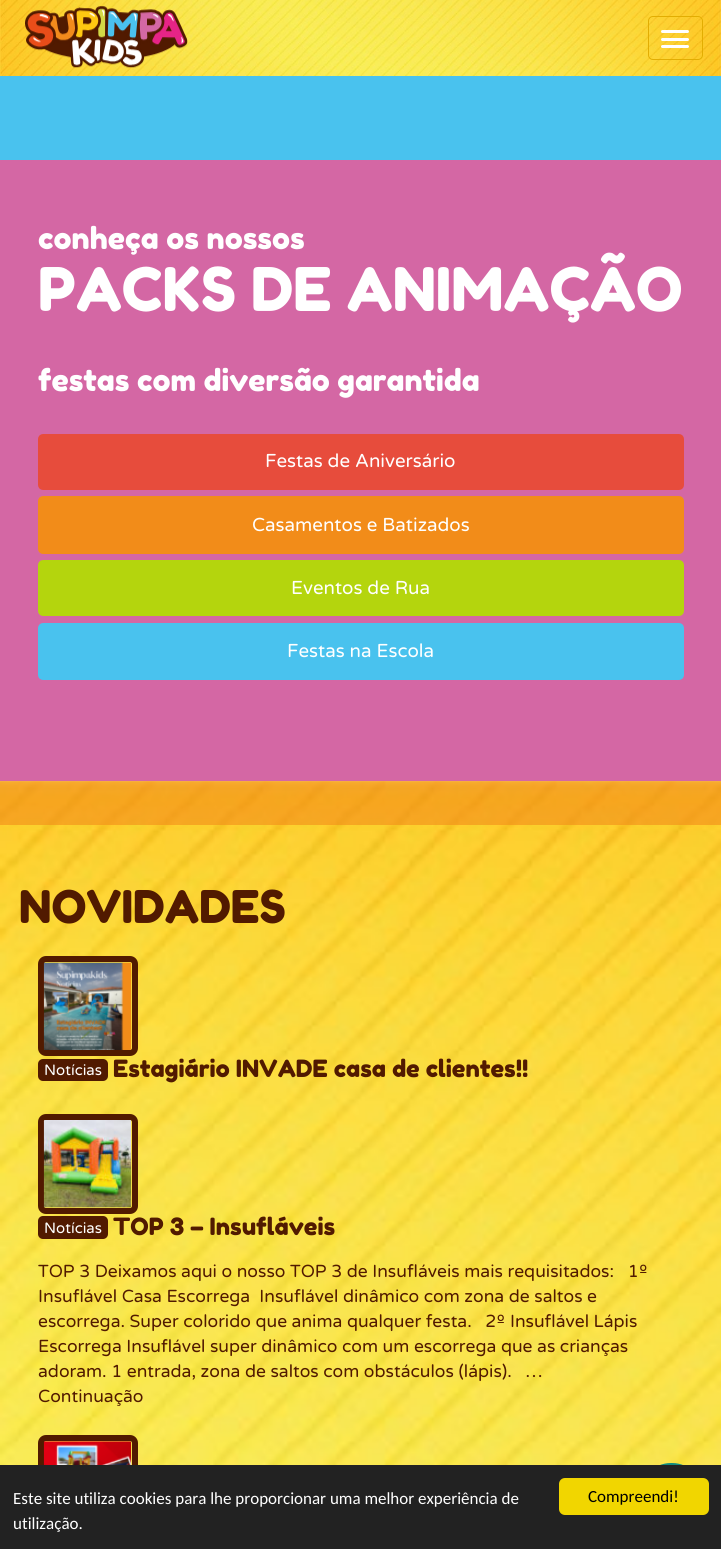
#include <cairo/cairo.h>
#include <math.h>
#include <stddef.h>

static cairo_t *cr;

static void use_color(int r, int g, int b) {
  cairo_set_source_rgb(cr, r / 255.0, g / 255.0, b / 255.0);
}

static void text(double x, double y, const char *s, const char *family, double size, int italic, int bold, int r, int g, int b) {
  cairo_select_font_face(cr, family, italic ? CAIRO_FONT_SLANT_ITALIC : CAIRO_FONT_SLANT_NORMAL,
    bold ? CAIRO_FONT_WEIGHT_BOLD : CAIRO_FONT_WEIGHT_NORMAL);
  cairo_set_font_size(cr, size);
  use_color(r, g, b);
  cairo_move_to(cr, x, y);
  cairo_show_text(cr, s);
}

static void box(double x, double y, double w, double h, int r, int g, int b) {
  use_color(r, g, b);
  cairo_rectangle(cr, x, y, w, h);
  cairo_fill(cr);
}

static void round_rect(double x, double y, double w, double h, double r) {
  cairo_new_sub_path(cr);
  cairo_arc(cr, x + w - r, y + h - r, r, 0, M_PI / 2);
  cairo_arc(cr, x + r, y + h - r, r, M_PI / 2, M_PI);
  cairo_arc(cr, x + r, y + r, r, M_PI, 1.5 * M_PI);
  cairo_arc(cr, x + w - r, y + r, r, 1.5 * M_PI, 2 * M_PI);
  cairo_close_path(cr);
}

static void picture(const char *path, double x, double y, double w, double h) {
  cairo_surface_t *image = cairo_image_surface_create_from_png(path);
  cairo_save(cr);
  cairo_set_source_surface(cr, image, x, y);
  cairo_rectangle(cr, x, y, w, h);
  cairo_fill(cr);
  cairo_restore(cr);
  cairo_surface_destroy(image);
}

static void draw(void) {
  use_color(255, 255, 255);
  cairo_paint(cr);
  box(0, 75, 721, 85, 73, 194, 238);
  picture("img_01.png", 0, 0, 721, 76);
  picture("img_02.png", 25, 6, 163, 62);
  round_rect(648.5, 16.5, 54, 43, 4.5);
  use_color(226, 173, 2);
  cairo_set_line_width(cr, 1);
  cairo_stroke(cr);
  use_color(255, 255, 255);
  round_rect(661, 30, 28, 3, 1.5);
  cairo_fill(cr);
  round_rect(661, 38, 28, 3, 1.5);
  cairo_fill(cr);
  round_rect(661, 45, 28, 3, 1.5);
  cairo_fill(cr);
  box(0, 160, 721, 621, 212, 103, 164);
  use_color(231, 76, 60);
  round_rect(39.5, 435.5, 643, 53, 3.5);
  cairo_fill_preserve(cr);
  cairo_set_line_width(cr, 3);
  cairo_stroke(cr);
  use_color(242, 140, 25);
  round_rect(39.5, 497.5, 643, 55, 3.5);
  cairo_fill_preserve(cr);
  cairo_stroke(cr);
  use_color(180, 213, 13);
  round_rect(39.5, 561.5, 643, 53, 3.5);
  cairo_fill_preserve(cr);
  cairo_stroke(cr);
  use_color(73, 194, 238);
  round_rect(39.5, 624.5, 643, 54, 3.5);
  cairo_fill_preserve(cr);
  cairo_stroke(cr);
  picture("img_03.png", 0, 781, 721, 684);
  cairo_set_source_rgba(cr, 0.949, 0.549, 0.098, 0.6);
  cairo_rectangle(cr, 0, 781, 721, 44);
  cairo_fill(cr);
  round_rect(41, 959, 94, 94, 5);
  use_color(81, 26, 0);
  cairo_set_line_width(cr, 6);
  cairo_stroke(cr);
  picture("img_04.png", 43, 962, 89, 88);
  round_rect(38, 1059, 70, 22, 5);
  cairo_fill(cr);
  round_rect(41, 1117, 94, 94, 5);
  cairo_stroke(cr);
  picture("img_05.png", 43, 1120, 89, 88);
  round_rect(38, 1216, 70, 23, 5);
  cairo_fill(cr);
  round_rect(41, 1438, 94, 94, 5);
  cairo_stroke(cr);
  picture("img_06.png", 43, 1441, 89, 24);
  use_color(17, 140, 126);
  round_rect(640, 1463, 63, 62, 31);
  cairo_fill(cr);
  box(0, 1465, 721, 84, 34, 34, 34);
  use_color(241, 214, 0);
  round_rect(559, 1478, 150, 37, 6);
  cairo_fill(cr);
  text(38, 249, "conheça os nossos", "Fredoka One", 30, 0, 0, 255, 255, 255);
  text(38, 311, "PACKS DE ANIMAÇÃO", "Fredoka One", 60, 0, 0, 255, 255, 255);
  text(38, 391, "festas com diversão garantida", "Fredoka One", 30, 0, 0, 255, 255, 255);
  text(265, 467, "Festas de Aniversário", "Varela Round", 18.75, 0, 0, 255, 255, 255);
  text(252, 531, "Casamentos e Batizados", "Varela Round", 18.75, 0, 0, 255, 255, 255);
  text(291, 594, "Eventos de Rua", "Varela Round", 18.75, 0, 0, 255, 255, 255);
  text(287, 657, "Festas na Escola", "Varela Round", 18.75, 0, 0, 255, 255, 255);
  text(19, 923, "NOVIDADES", "Fredoka One", 45, 0, 0, 81, 26, 0);
  text(44, 1075, "Notícias", "Varela Round", 15, 0, 0, 255, 255, 255);
  text(113, 1077, "Estagiário INVADE casa de clientes!!", "Fredoka One", 23.75, 0, 0, 81, 26, 0);
  text(44, 1233, "Notícias", "Varela Round", 15, 0, 0, 255, 255, 255);
  text(113, 1235, "TOP 3 – Insufláveis", "Fredoka One", 23.75, 0, 0, 81, 26, 0);
  text(38, 1277, "TOP 3 Deixamos aqui o nosso TOP 3 de Insufláveis mais requisitados:   1º", "Varela Round", 17.5, 0, 0, 81, 26, 0);
  text(38, 1302, "Insuflável Casa Escorrega  Insuflável dinâmico com zona de saltos e", "Varela Round", 17.5, 0, 0, 81, 26, 0);
  text(38, 1327, "escorrega. Super colorido que anima qualquer festa.   2º Insuflável Lápis", "Varela Round", 17.5, 0, 0, 81, 26, 0);
  text(38, 1352, "Escorrega Insuflável super dinâmico com um escorrega que as crianças", "Varela Round", 17.5, 0, 0, 81, 26, 0);
  text(38, 1377, "adoram. 1 entrada, zona de saltos com obstáculos (lápis).   …", "Varela Round", 17.5, 0, 0, 81, 26, 0);
  text(38, 1402, "Continuação", "Varela Round", 17.5, 0, 0, 81, 26, 0);
  text(13, 1504, "Este site utiliza cookies para lhe proporcionar uma melhor experiência de", "Carlito", 17, 0, 0, 255, 255, 255);
  text(13, 1529, "utilização.", "Carlito", 17, 0, 0, 255, 255, 255);
  text(588, 1502, "Compreendi!", "Carlito", 17, 0, 0, 0, 0, 0);
}

int main(void) {
  cairo_surface_t *surface = cairo_image_surface_create(CAIRO_FORMAT_RGB24, 721, 1549);
  cr = cairo_create(surface);
  cairo_font_options_t *options = cairo_font_options_create();
  cairo_font_options_set_hint_metrics(options, CAIRO_HINT_METRICS_OFF);
  cairo_font_options_set_hint_style(options, CAIRO_HINT_STYLE_NONE);
  cairo_set_font_options(cr, options);
  cairo_set_miter_limit(cr, 4);
  draw();
  cairo_surface_write_to_png(surface, "out.png");
  cairo_font_options_destroy(options);
  cairo_destroy(cr);
  cairo_surface_destroy(surface);
  return 0;
}
